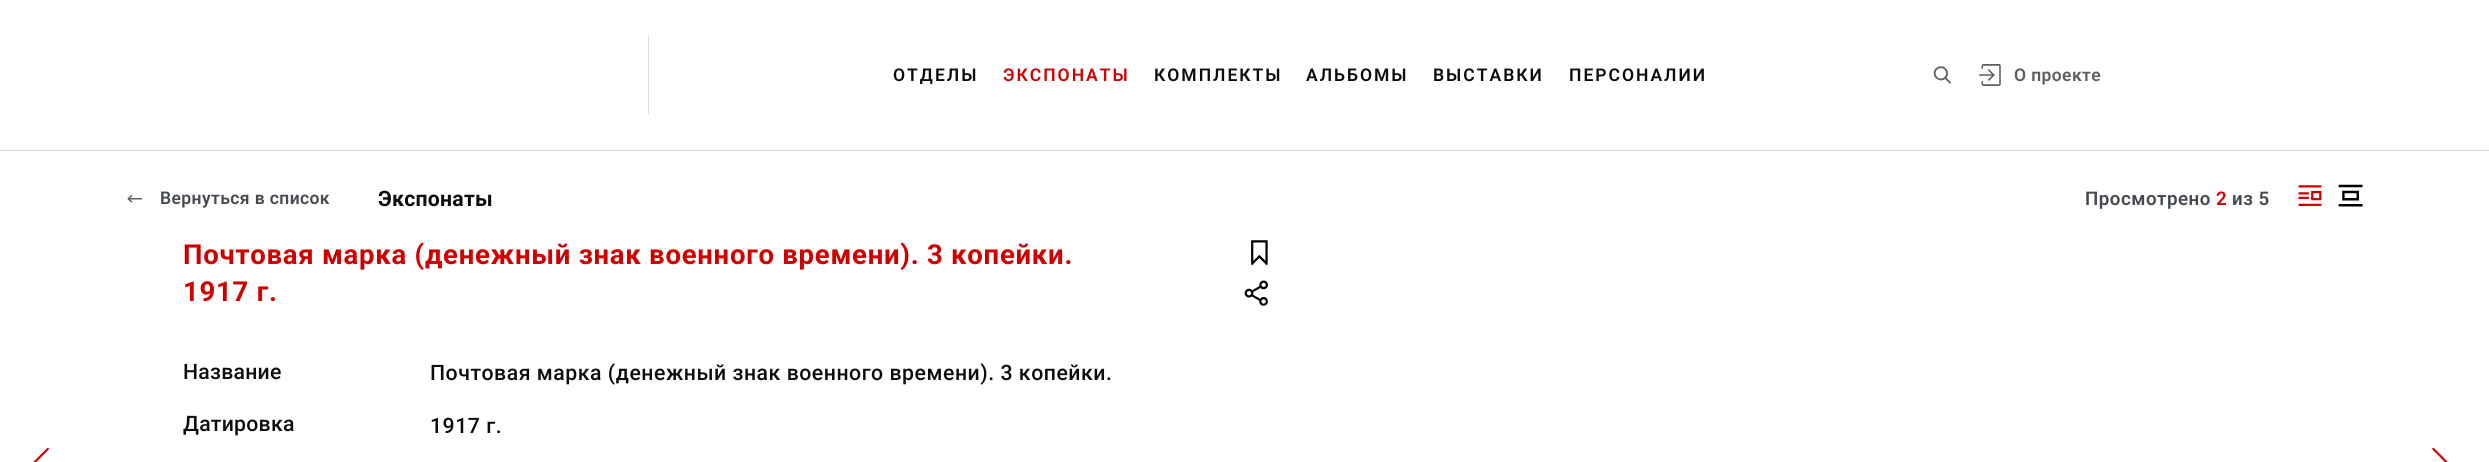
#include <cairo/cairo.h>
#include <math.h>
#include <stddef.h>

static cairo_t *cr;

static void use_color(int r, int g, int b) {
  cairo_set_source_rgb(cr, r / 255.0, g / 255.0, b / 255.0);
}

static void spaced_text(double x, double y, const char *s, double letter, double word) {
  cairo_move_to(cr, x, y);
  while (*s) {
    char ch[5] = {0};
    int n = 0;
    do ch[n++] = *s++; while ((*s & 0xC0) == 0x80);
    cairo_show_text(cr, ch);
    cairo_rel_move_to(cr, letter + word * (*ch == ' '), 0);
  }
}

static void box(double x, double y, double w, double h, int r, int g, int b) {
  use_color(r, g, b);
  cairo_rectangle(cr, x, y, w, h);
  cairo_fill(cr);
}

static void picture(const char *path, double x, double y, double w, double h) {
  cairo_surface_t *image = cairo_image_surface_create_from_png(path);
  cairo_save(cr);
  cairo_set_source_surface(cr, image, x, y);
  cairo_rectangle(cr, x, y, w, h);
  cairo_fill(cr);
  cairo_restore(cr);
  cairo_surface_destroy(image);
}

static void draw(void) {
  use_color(255, 255, 255);
  cairo_paint(cr);
  box(0, 150, 2489, 1, 211, 211, 211);
  box(648, 36, 1, 78, 222, 222, 222);
  picture("img_01.png", 1933, 66, 19, 18);
  picture("img_02.png", 1979, 64, 22, 22);
  picture("img_03.png", 127, 194, 16, 9);
  picture("img_04.png", 2298, 185, 24, 21);
  picture("img_05.png", 2338, 184, 25, 23);
  picture("img_06.png", 1251, 240, 17, 25);
  picture("img_07.png", 1244, 280, 24, 26);
  picture("img_08.png", 33, 447, 17, 15);
  picture("img_09.png", 2432, 447, 16, 15);
  cairo_select_font_face(cr, "Roboto SemiBold", CAIRO_FONT_SLANT_NORMAL, CAIRO_FONT_WEIGHT_NORMAL);
  cairo_set_font_size(cr, 17.5);
  use_color(10, 13, 16);
  spaced_text(893, 81, "ОТДЕЛЫ", 2, 0);
  use_color(207, 0, 0);
  spaced_text(1003, 81, "ЭКСПОНАТЫ", 2, 0);
  use_color(10, 13, 16);
  spaced_text(1154, 81, "КОМПЛЕКТЫ", 2, 0);
  spaced_text(1306, 81, "АЛЬБОМЫ", 2, 0);
  spaced_text(1433, 81, "ВЫСТАВКИ", 2, 0);
  spaced_text(1569, 81, "ПЕРСОНАЛИИ", 2, 0);
  use_color(92, 95, 98);
  spaced_text(2014, 81, "О проекте", 0.4, 0);
  use_color(68, 74, 80);
  spaced_text(160, 204, "Вернуться в список", 0.4, 0);
  cairo_select_font_face(cr, "Roboto", CAIRO_FONT_SLANT_NORMAL, CAIRO_FONT_WEIGHT_BOLD);
  cairo_set_font_size(cr, 21.25);
  use_color(10, 13, 16);
  spaced_text(378, 206, "Экспонаты", 0.25, 0);
  cairo_select_font_face(cr, "Roboto SemiBold", CAIRO_FONT_SLANT_NORMAL, CAIRO_FONT_WEIGHT_NORMAL);
  cairo_set_font_size(cr, 18.75);
  use_color(68, 74, 80);
  spaced_text(2085, 205, "Просмотрено", 0.5, 0);
  use_color(207, 0, 0);
  spaced_text(2216, 205, "2", 0.5, 0);
  use_color(68, 74, 80);
  spaced_text(2232, 205, "из 5", 0.5, 0);
  cairo_select_font_face(cr, "Roboto", CAIRO_FONT_SLANT_NORMAL, CAIRO_FONT_WEIGHT_BOLD);
  cairo_set_font_size(cr, 27.5);
  use_color(207, 0, 0);
  spaced_text(183, 264, "Почтовая марка (денежный знак военного времени). 3 копейки.", 0.75, 0);
  spaced_text(183, 301, "1917 г.", 0.75, 0);
  cairo_select_font_face(cr, "Roboto Medium", CAIRO_FONT_SLANT_NORMAL, CAIRO_FONT_WEIGHT_NORMAL);
  cairo_set_font_size(cr, 21.25);
  use_color(10, 13, 16);
  spaced_text(183, 379, "Название", 0.25, 0);
  spaced_text(430, 380, "Почтовая марка (денежный знак военного времени). 3 копейки.", 0.53, 0);
  cairo_save(cr);
  cairo_rectangle(cr, 183, 349, 1018, 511);
  cairo_clip(cr);
  spaced_text(183, 431, "Датировка", 0.25, 0);
  cairo_restore(cr);
  spaced_text(430, 433, "1917 г.", 0.53, 0);
}

int main(void) {
  cairo_surface_t *surface = cairo_image_surface_create(CAIRO_FORMAT_RGB24, 2489, 462);
  cr = cairo_create(surface);
  cairo_font_options_t *options = cairo_font_options_create();
  cairo_font_options_set_hint_metrics(options, CAIRO_HINT_METRICS_OFF);
  cairo_font_options_set_hint_style(options, CAIRO_HINT_STYLE_NONE);
  cairo_set_font_options(cr, options);
  cairo_set_miter_limit(cr, 4);
  draw();
  cairo_surface_write_to_png(surface, "out.png");
  cairo_font_options_destroy(options);
  cairo_destroy(cr);
  cairo_surface_destroy(surface);
  return 0;
}
